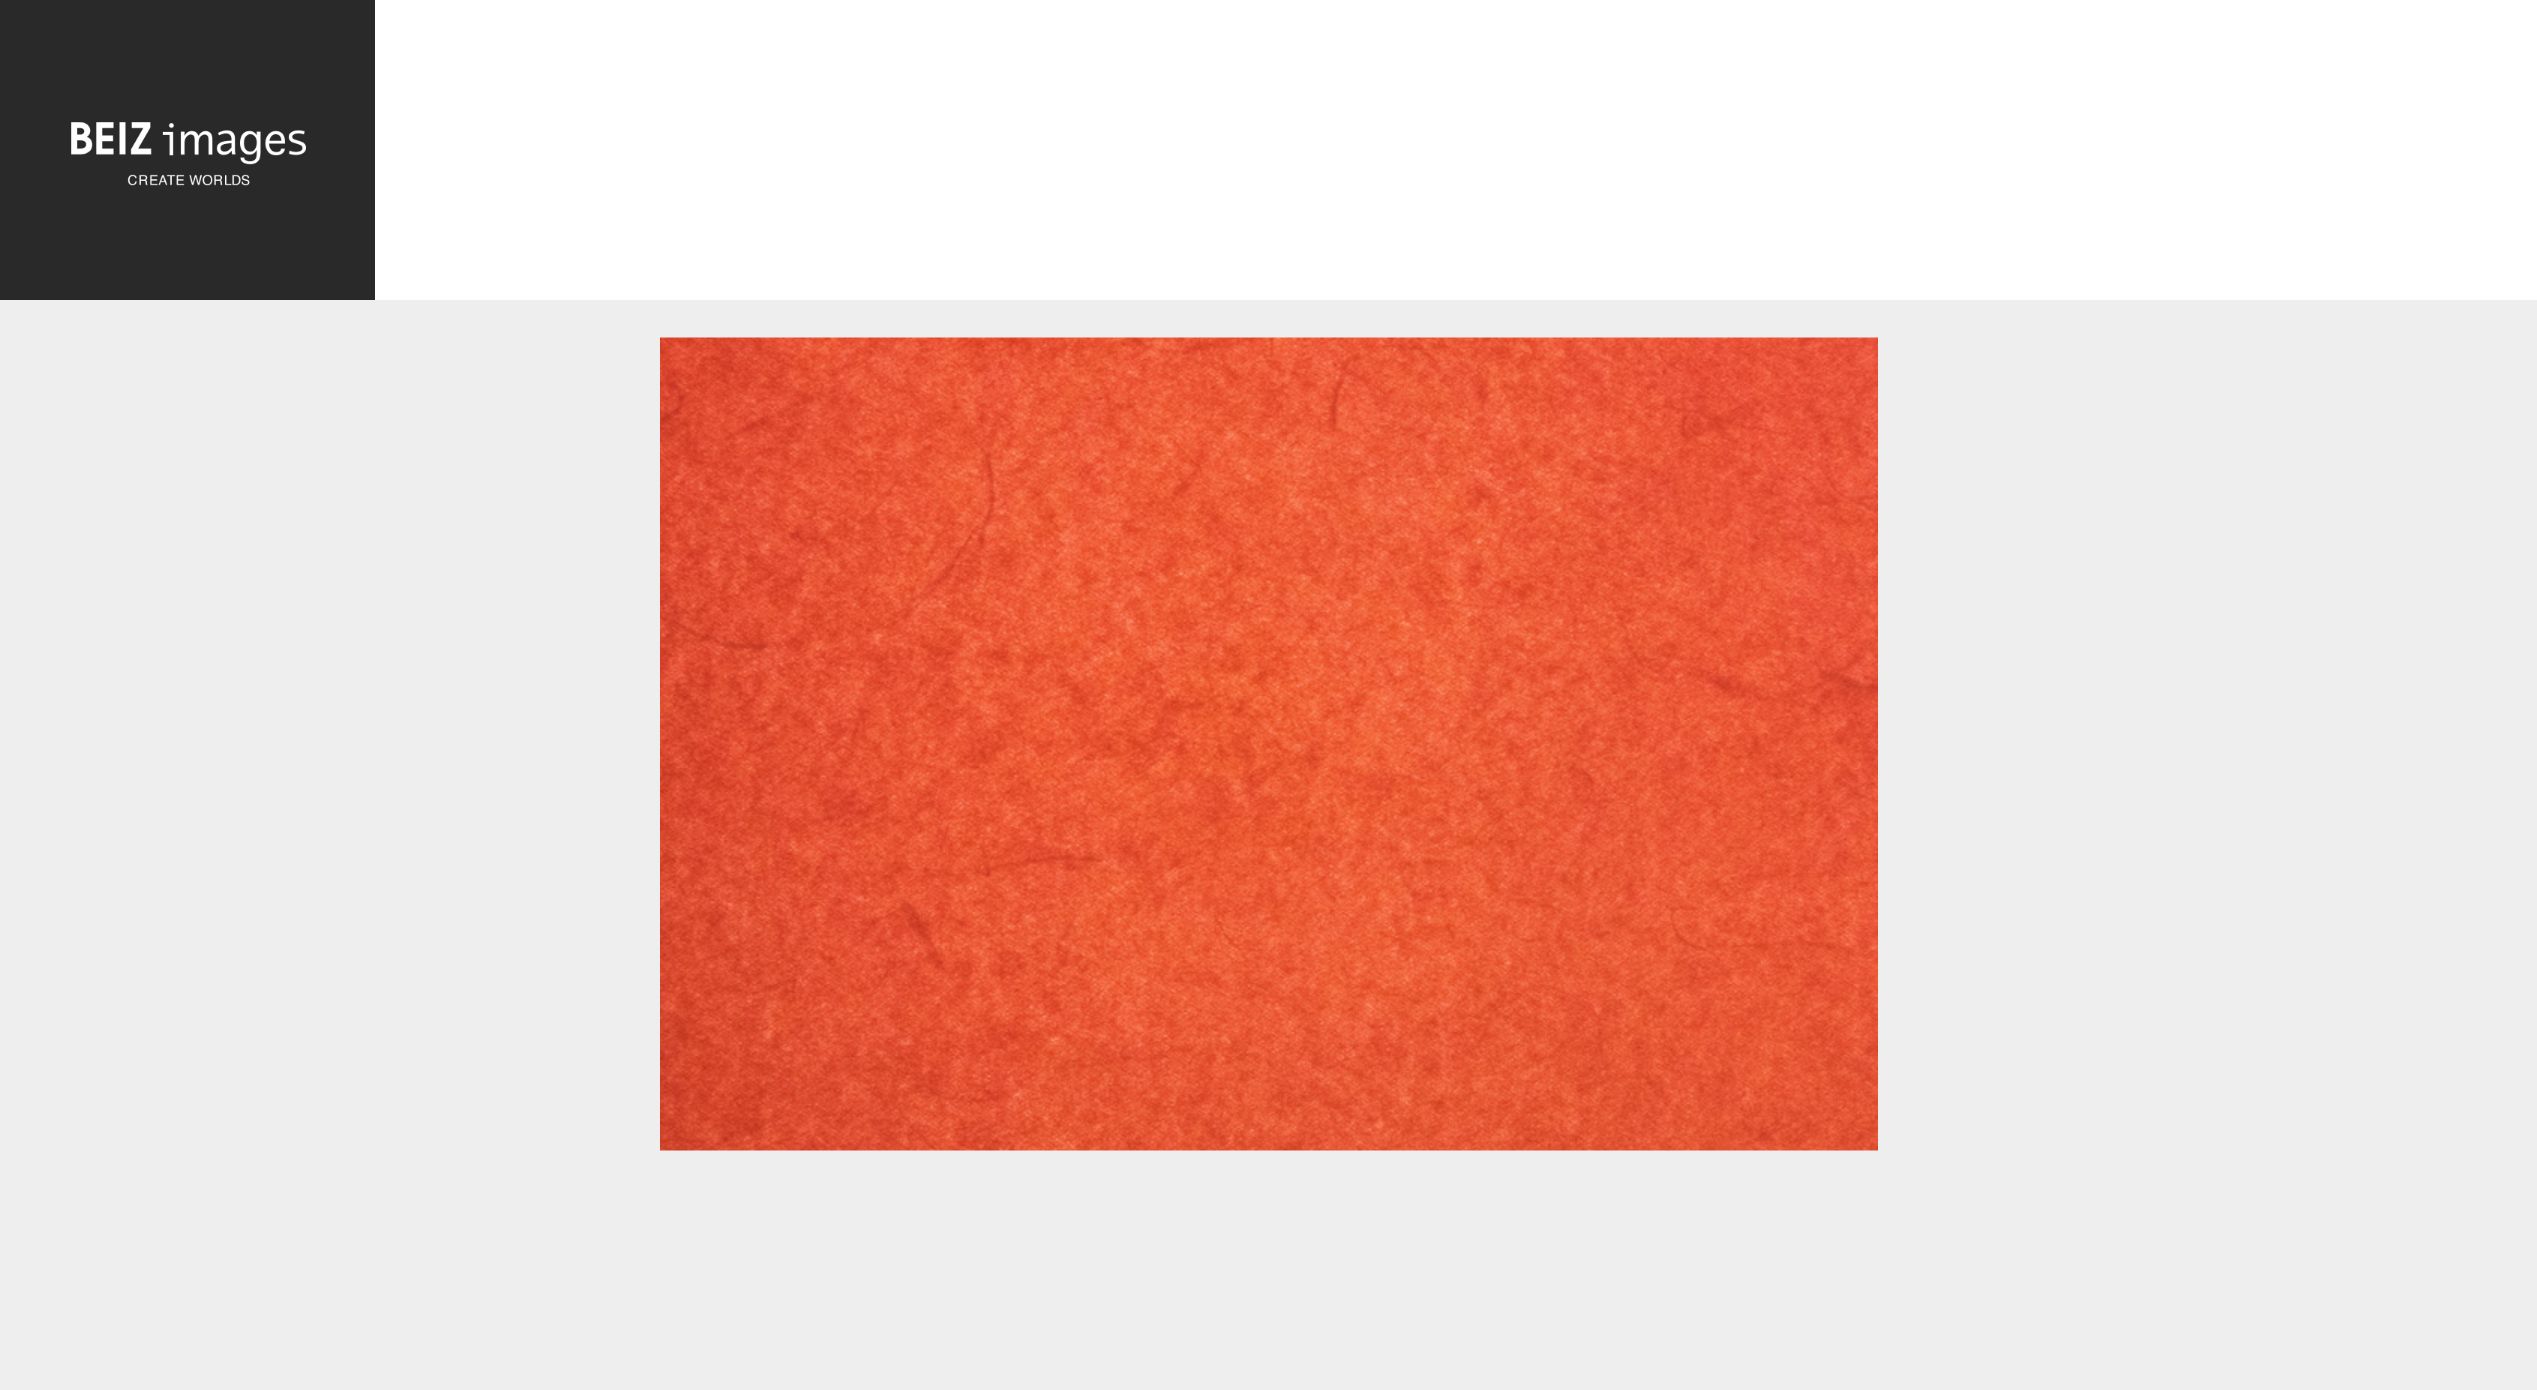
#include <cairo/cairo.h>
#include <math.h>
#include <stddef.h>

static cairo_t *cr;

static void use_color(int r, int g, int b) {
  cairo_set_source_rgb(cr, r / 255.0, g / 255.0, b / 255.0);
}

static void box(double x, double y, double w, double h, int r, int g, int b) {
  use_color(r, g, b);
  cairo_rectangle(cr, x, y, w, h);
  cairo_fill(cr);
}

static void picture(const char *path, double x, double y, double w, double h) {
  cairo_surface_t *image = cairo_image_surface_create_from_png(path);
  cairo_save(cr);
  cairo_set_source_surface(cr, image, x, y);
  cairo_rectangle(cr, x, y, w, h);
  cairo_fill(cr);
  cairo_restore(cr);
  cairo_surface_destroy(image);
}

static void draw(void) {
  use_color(238, 238, 238);
  cairo_paint(cr);
  box(0, 0, 375, 300, 41, 41, 41);
  picture("img_01.png", 71, 122, 235, 64);
  box(375, 0, 2162, 300, 255, 255, 255);
  picture("img_02.png", 660, 337, 1218, 814);
}

int main(void) {
  cairo_surface_t *surface = cairo_image_surface_create(CAIRO_FORMAT_RGB24, 2537, 1390);
  cr = cairo_create(surface);
  cairo_font_options_t *options = cairo_font_options_create();
  cairo_font_options_set_hint_metrics(options, CAIRO_HINT_METRICS_OFF);
  cairo_font_options_set_hint_style(options, CAIRO_HINT_STYLE_NONE);
  cairo_set_font_options(cr, options);
  cairo_set_miter_limit(cr, 4);
  draw();
  cairo_surface_write_to_png(surface, "out.png");
  cairo_font_options_destroy(options);
  cairo_destroy(cr);
  cairo_surface_destroy(surface);
  return 0;
}
